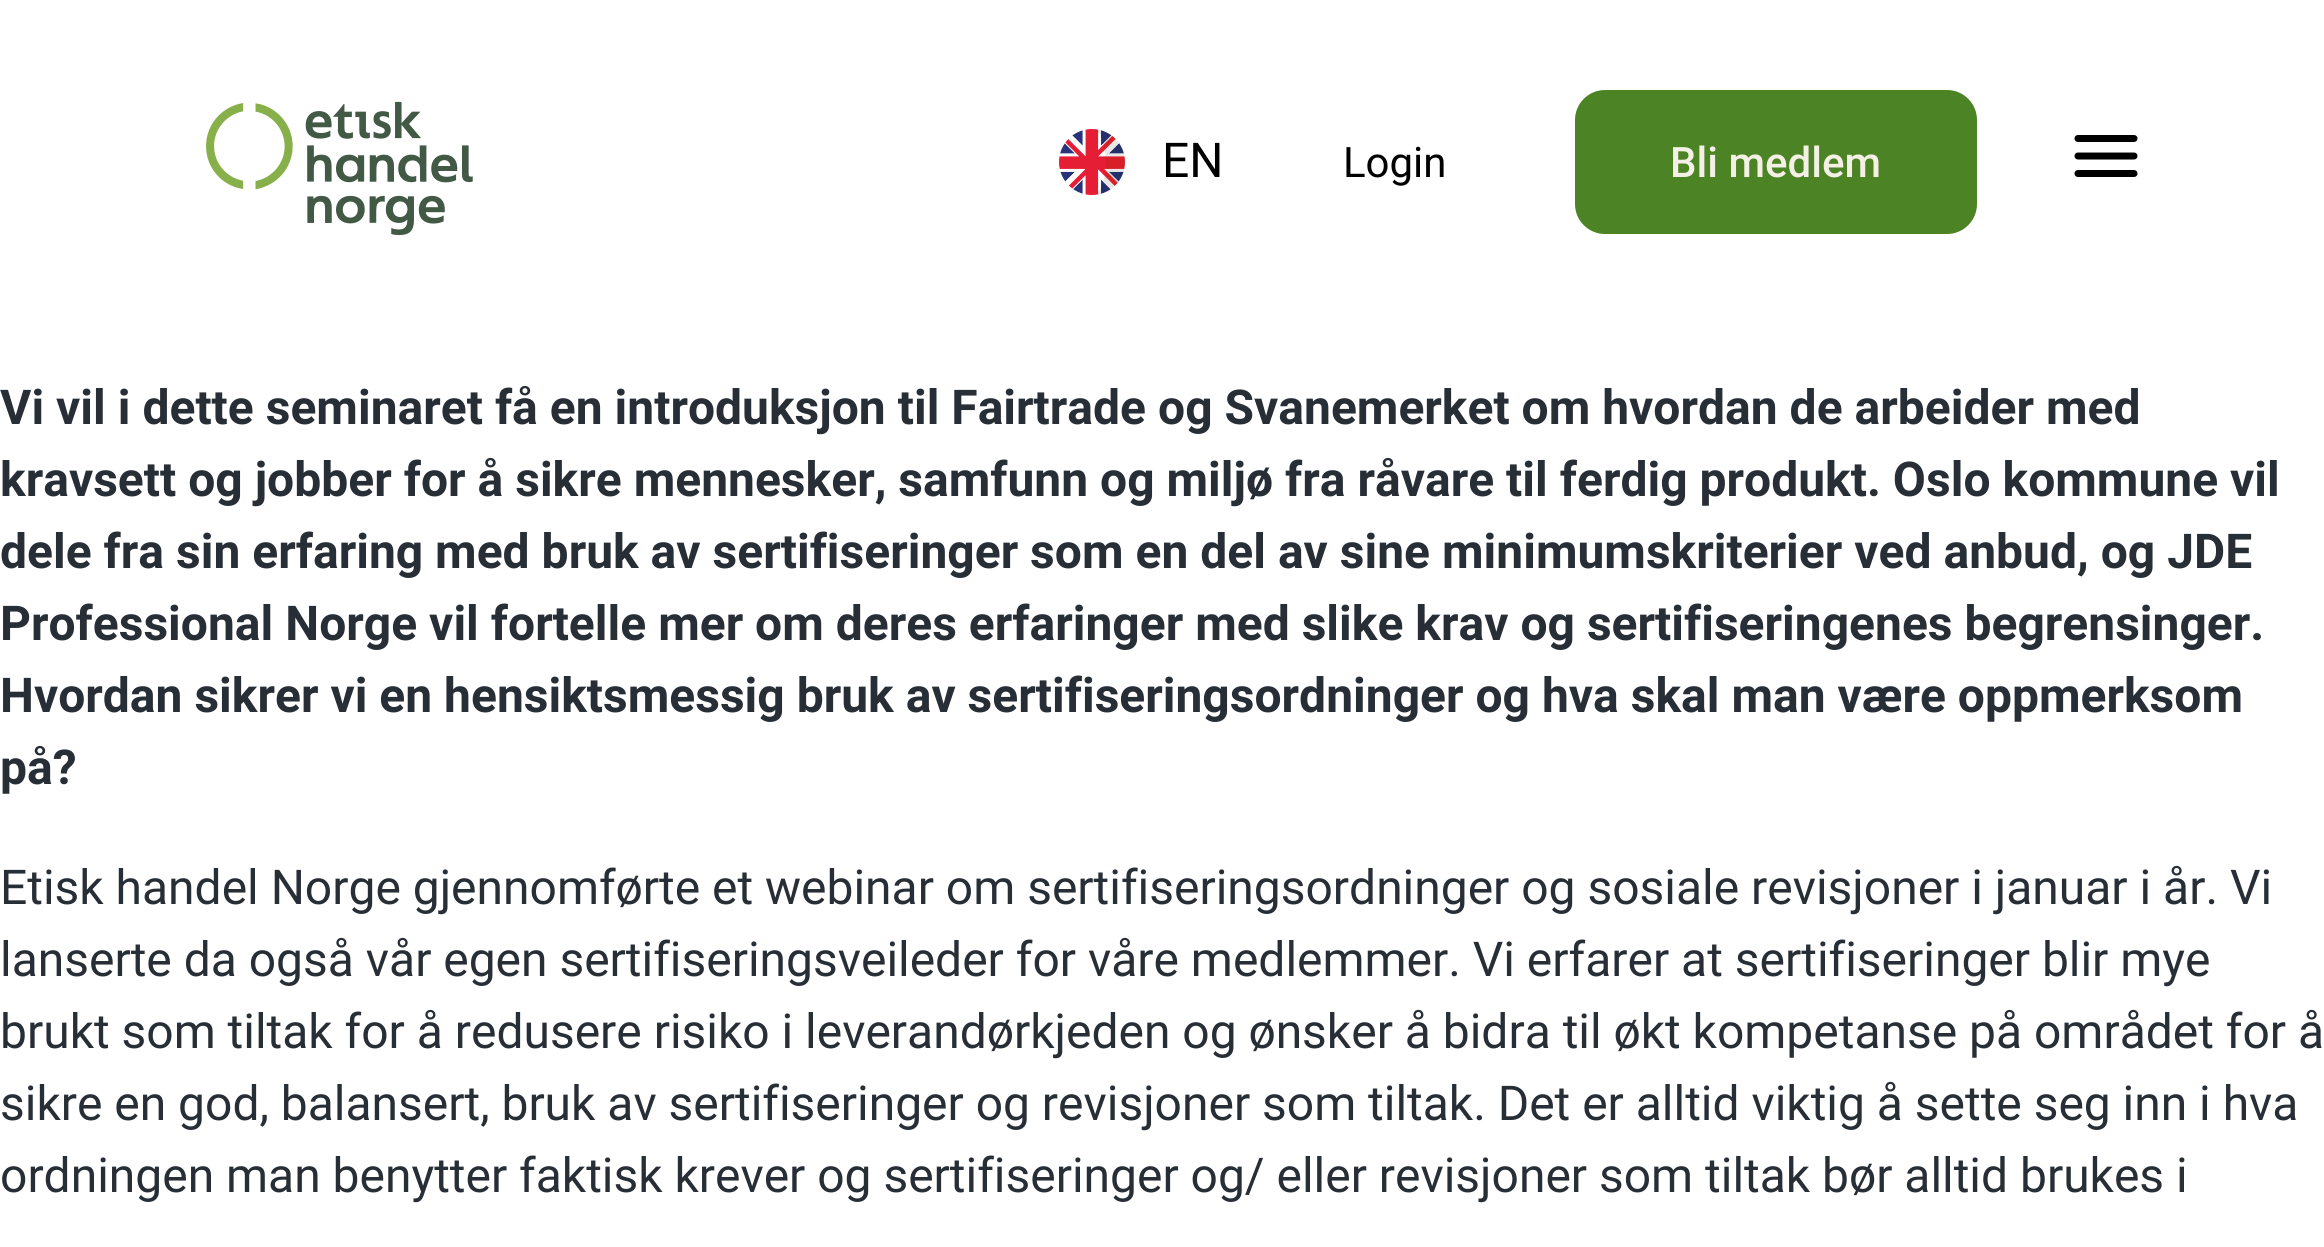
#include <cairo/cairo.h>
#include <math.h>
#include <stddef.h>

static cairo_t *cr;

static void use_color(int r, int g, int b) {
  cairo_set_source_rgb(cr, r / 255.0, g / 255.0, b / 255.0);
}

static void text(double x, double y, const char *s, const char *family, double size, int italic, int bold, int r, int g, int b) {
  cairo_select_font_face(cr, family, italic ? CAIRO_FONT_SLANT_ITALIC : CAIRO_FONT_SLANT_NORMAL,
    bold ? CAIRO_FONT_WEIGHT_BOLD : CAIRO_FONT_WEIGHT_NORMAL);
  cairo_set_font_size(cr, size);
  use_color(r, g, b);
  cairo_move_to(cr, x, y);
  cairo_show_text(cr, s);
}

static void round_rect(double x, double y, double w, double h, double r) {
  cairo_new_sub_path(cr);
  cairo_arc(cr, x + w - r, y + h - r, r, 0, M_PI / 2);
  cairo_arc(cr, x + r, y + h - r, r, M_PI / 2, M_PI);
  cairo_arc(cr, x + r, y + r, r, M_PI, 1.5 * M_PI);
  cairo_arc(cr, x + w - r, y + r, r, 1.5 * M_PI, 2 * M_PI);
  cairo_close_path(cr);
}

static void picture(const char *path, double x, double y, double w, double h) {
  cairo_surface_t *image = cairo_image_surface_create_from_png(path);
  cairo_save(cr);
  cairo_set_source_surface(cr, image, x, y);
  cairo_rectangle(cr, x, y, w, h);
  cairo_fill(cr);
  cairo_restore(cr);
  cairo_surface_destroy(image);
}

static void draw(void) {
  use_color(255, 255, 255);
  cairo_paint(cr);
  picture("img_01.png", 206, 101, 267, 135);
  picture("img_02.png", 1059, 129, 66, 66);
  use_color(76, 131, 37);
  round_rect(1575, 90, 402, 144, 30);
  cairo_fill(cr);
  picture("img_03.png", 2074, 135, 64, 42);
  text(1162, 177, "EN", "Roboto", 48, 0, 0, 0, 0, 0);
  text(1343, 177, "Login", "Roboto", 42, 0, 0, 0, 0, 0);
  text(1670, 177, "Bli medlem", "Roboto Medium", 42, 0, 0, 244, 240, 230);
  text(0, 424, "Vi vil i dette seminaret få en introduksjon til Fairtrade og Svanemerket om hvordan de arbeider med", "Roboto", 48, 0, 1, 40, 46, 54);
  text(0, 496, "kravsett og jobber for å sikre mennesker, samfunn og miljø fra råvare til ferdig produkt. Oslo kommune vil", "Roboto", 48, 0, 1, 40, 46, 54);
  text(0, 568, "dele fra sin erfaring med bruk av sertifiseringer som en del av sine minimumskriterier ved anbud, og JDE", "Roboto", 48, 0, 1, 40, 46, 54);
  text(0, 640, "Professional Norge vil fortelle mer om deres erfaringer med slike krav og sertifiseringenes begrensinger.", "Roboto", 48, 0, 1, 40, 46, 54);
  text(0, 712, "Hvordan sikrer vi en hensiktsmessig bruk av sertifiseringsordninger og hva skal man være oppmerksom", "Roboto", 48, 0, 1, 40, 46, 54);
  text(0, 784, "på?", "Roboto", 48, 0, 1, 40, 46, 54);
  text(0, 904, "Etisk handel Norge gjennomførte et webinar om sertifiseringsordninger og sosiale revisjoner i januar i år. Vi", "Roboto", 48, 0, 0, 40, 46, 54);
  text(0, 976, "lanserte da også vår egen sertifiseringsveileder for våre medlemmer. Vi erfarer at sertifiseringer blir mye", "Roboto", 48, 0, 0, 40, 46, 54);
  text(0, 1048, "brukt som tiltak for å redusere risiko i leverandørkjeden og ønsker å bidra til økt kompetanse på området for å", "Roboto", 48, 0, 0, 40, 46, 54);
  text(0, 1120, "sikre en god, balansert, bruk av sertifiseringer og revisjoner som tiltak. Det er alltid viktig å sette seg inn i hva", "Roboto", 48, 0, 0, 40, 46, 54);
  text(0, 1192, "ordningen man benytter faktisk krever og sertifiseringer og/ eller revisjoner som tiltak bør alltid brukes i", "Roboto", 48, 0, 0, 40, 46, 54);
}

int main(void) {
  cairo_surface_t *surface = cairo_image_surface_create(CAIRO_FORMAT_RGB24, 2324, 1247);
  cr = cairo_create(surface);
  cairo_font_options_t *options = cairo_font_options_create();
  cairo_font_options_set_hint_metrics(options, CAIRO_HINT_METRICS_OFF);
  cairo_font_options_set_hint_style(options, CAIRO_HINT_STYLE_NONE);
  cairo_set_font_options(cr, options);
  cairo_set_miter_limit(cr, 4);
  draw();
  cairo_surface_write_to_png(surface, "out.png");
  cairo_font_options_destroy(options);
  cairo_destroy(cr);
  cairo_surface_destroy(surface);
  return 0;
}
